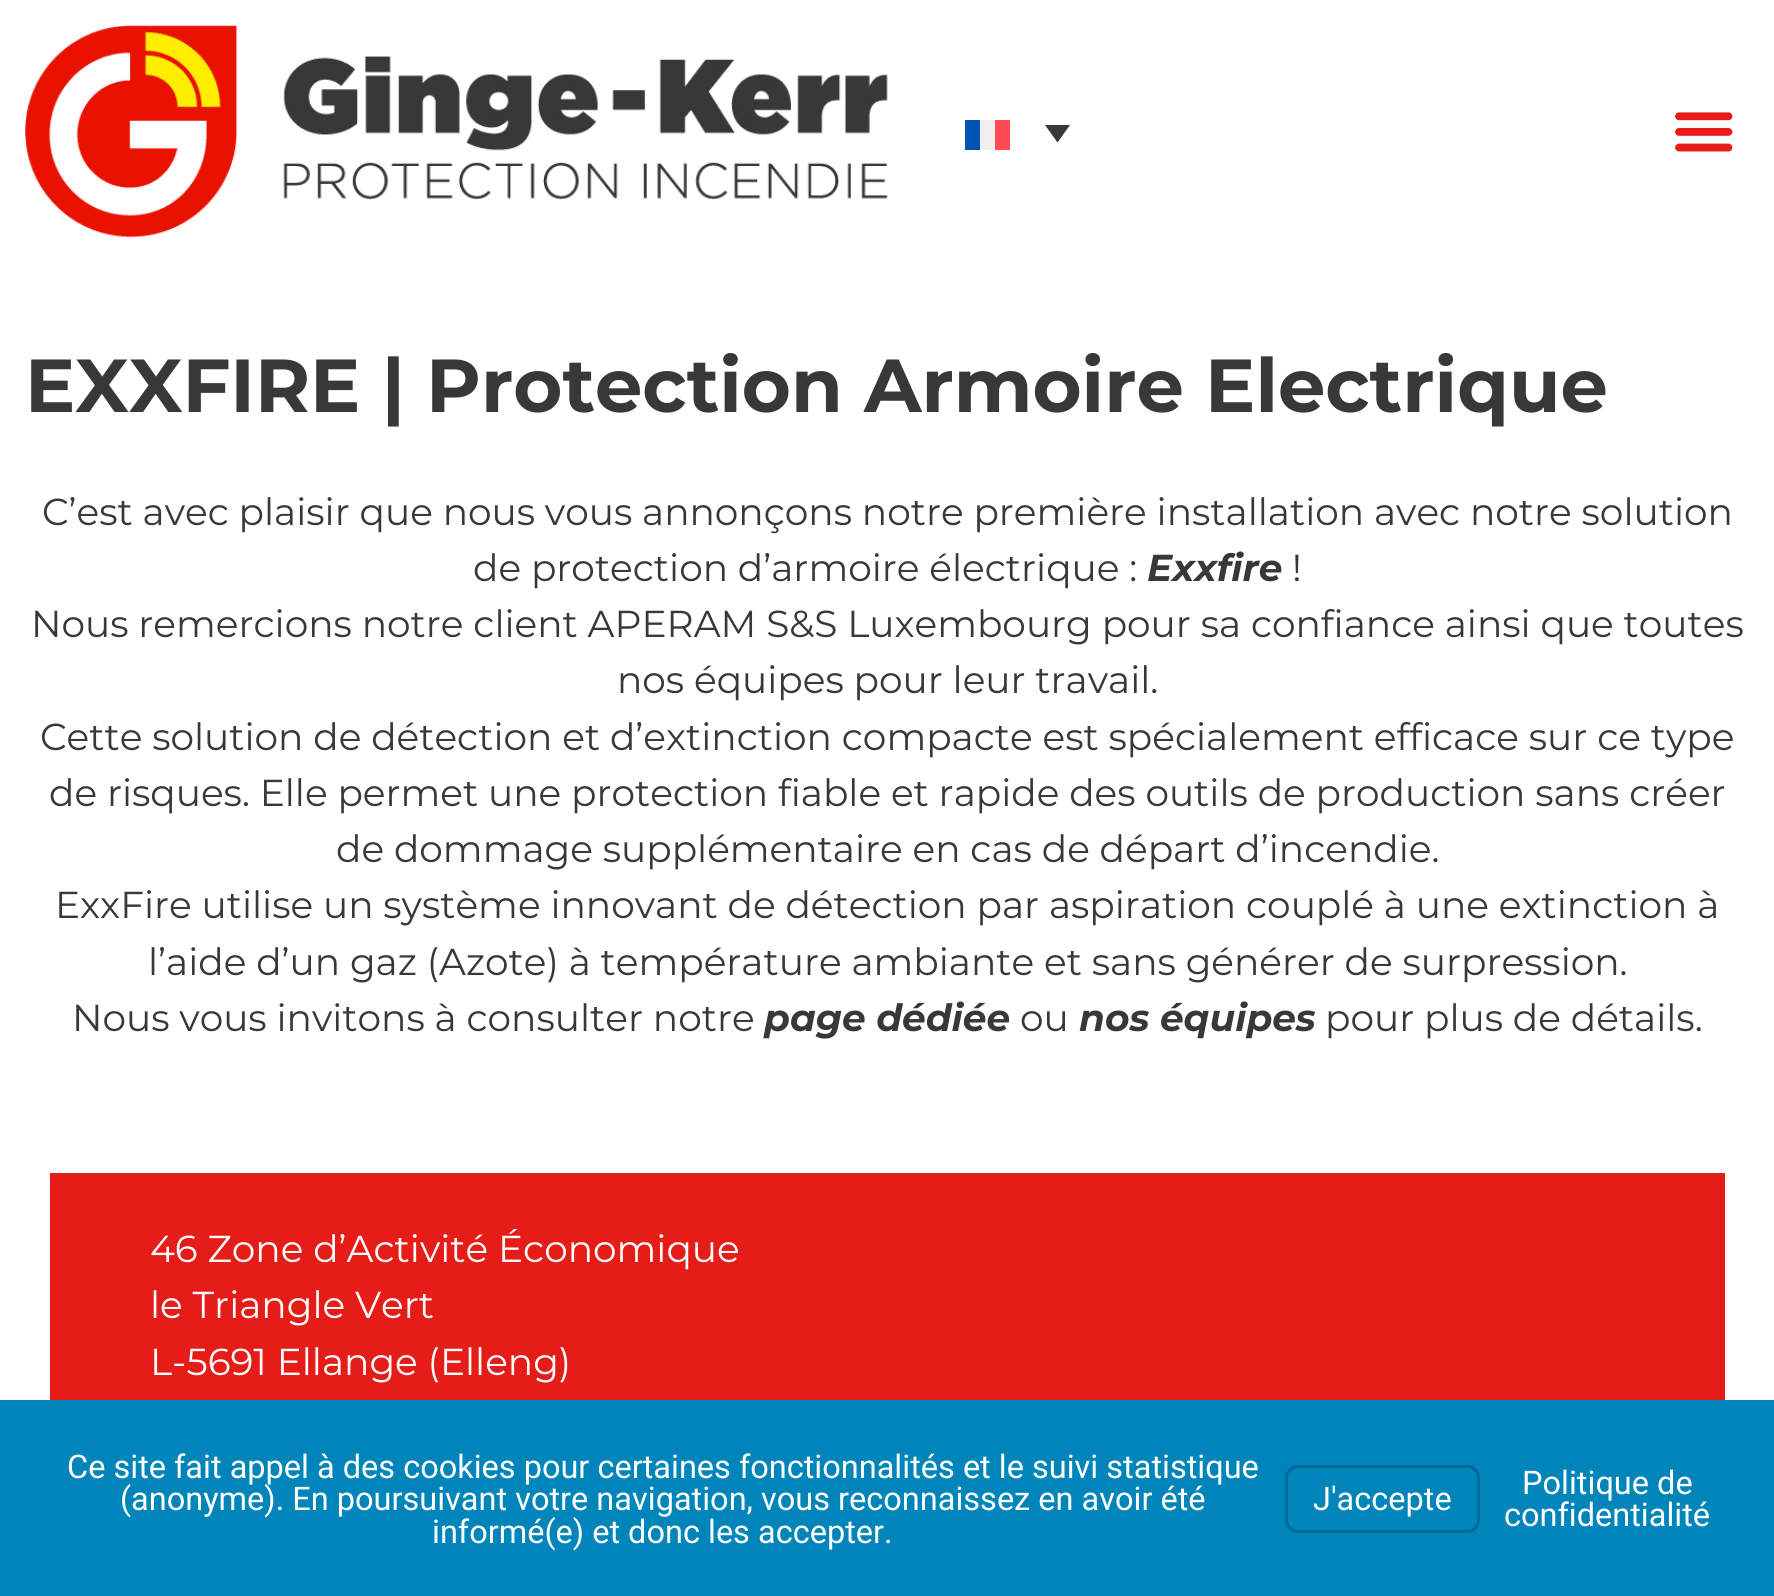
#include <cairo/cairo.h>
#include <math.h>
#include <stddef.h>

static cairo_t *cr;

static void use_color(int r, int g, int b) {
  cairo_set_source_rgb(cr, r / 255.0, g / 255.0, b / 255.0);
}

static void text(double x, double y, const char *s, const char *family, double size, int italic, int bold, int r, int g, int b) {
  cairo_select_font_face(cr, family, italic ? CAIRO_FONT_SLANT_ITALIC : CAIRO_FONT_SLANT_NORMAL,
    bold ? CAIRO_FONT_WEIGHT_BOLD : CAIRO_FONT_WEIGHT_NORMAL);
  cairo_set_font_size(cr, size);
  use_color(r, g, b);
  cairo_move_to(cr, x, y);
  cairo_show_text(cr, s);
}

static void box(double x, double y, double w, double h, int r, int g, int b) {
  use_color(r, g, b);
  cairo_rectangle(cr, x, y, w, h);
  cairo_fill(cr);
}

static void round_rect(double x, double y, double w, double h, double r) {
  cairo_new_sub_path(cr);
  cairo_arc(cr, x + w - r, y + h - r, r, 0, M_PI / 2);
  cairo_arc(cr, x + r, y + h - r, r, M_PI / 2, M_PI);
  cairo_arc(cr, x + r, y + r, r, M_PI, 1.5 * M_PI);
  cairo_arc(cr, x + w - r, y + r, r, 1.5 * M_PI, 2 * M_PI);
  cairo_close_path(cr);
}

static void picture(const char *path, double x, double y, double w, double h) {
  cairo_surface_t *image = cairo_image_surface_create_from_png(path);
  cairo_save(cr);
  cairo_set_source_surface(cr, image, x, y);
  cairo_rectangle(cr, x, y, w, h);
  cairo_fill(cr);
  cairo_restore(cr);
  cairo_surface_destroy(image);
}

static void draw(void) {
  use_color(255, 255, 255);
  cairo_paint(cr);
  picture("img_01.png", 25, 25, 863, 213);
  box(965, 120, 15, 30, 0, 82, 180);
  box(980, 120, 15, 30, 240, 240, 240);
  box(995, 120, 15, 30, 255, 75, 85);
  use_color(56, 56, 56);
  cairo_new_path(cr);
  cairo_move_to(cr, 1045, 125);
  cairo_line_to(cr, 1070, 125);
  cairo_line_to(cr, 1057.5, 142.5);
  cairo_close_path(cr);
  cairo_fill(cr);
  picture("img_02.png", 1675, 112, 58, 40);
  box(50, 1173, 1675, 227, 229, 28, 23);
  box(0, 1400, 1774, 196, 0, 133, 186);
  round_rect(1286.5, 1466.5, 192, 65, 11.5);
  use_color(0, 103, 153);
  cairo_set_line_width(cr, 3);
  cairo_stroke(cr);
  text(25, 412, "EXXFIRE | Protection Armoire Electrique", "Montserrat", 75, 0, 1, 56, 56, 56);
  text(42, 525, "C’est avec plaisir que nous vous annonçons notre première installation avec notre solution", "Montserrat", 37.5, 0, 0, 56, 56, 56);
  text(473, 581, "de protection d’armoire électrique :", "Montserrat", 37.5, 0, 0, 56, 56, 56);
  text(1147, 581, "Exxfire", "Montserrat", 37.5, 1, 1, 56, 56, 56);
  text(1292, 581, "!", "Montserrat", 37.5, 0, 0, 56, 56, 56);
  text(31, 637, "Nous remercions notre client APERAM S&S Luxembourg pour sa confiance ainsi que toutes", "Montserrat", 37.5, 0, 0, 56, 56, 56);
  text(617, 693, "nos équipes pour leur travail.", "Montserrat", 37.5, 0, 0, 56, 56, 56);
  text(40, 750, "Cette solution de détection et d’extinction compacte est spécialement efficace sur ce type", "Montserrat", 37.5, 0, 0, 56, 56, 56);
  text(49, 806, "de risques. Elle permet une protection fiable et rapide des outils de production sans créer", "Montserrat", 37.5, 0, 0, 56, 56, 56);
  text(336, 862, "de dommage supplémentaire en cas de départ d’incendie.", "Montserrat", 37.5, 0, 0, 56, 56, 56);
  text(55, 918, "ExxFire utilise un système innovant de détection par aspiration couplé à une extinction à", "Montserrat", 37.5, 0, 0, 56, 56, 56);
  text(148, 975, "l’aide d’un gaz (Azote) à température ambiante et sans générer de surpression.", "Montserrat", 37.5, 0, 0, 56, 56, 56);
  text(72, 1031, "Nous vous invitons à consulter notre", "Montserrat", 37.5, 0, 0, 56, 56, 56);
  text(764, 1031, "page dédiée", "Montserrat", 37.5, 1, 1, 56, 56, 56);
  text(1020, 1031, "ou", "Montserrat", 37.5, 0, 0, 56, 56, 56);
  text(1079, 1031, "nos équipes", "Montserrat", 37.5, 1, 1, 56, 56, 56);
  text(1325, 1031, "pour plus de détails.", "Montserrat", 37.5, 0, 0, 56, 56, 56);
  text(150, 1262, "46 Zone d’Activité Économique", "Montserrat", 37.5, 0, 0, 255, 255, 255);
  text(150, 1318, "le Triangle Vert", "Montserrat", 37.5, 0, 0, 255, 255, 255);
  text(150, 1375, "L-5691 Ellange (Elleng)", "Montserrat", 37.5, 0, 0, 255, 255, 255);
  text(67, 1478, "Ce site fait appel à des cookies pour certaines fonctionnalités et le suivi statistique", "Roboto", 32.5, 0, 0, 255, 255, 255);
  text(120, 1510, "(anonyme). En poursuivant votre navigation, vous reconnaissez en avoir été", "Roboto", 32.5, 0, 0, 255, 255, 255);
  text(432, 1543, "informé(e) et donc les accepter.", "Roboto", 32.5, 0, 0, 255, 255, 255);
  text(1313, 1510, "J'accepte", "Roboto", 32.5, 0, 0, 255, 255, 255);
  text(1522, 1494, "Politique de", "Roboto", 32.5, 0, 0, 255, 255, 255);
  text(1504, 1526, "confidentialité", "Roboto", 32.5, 0, 0, 255, 255, 255);
}

int main(void) {
  cairo_surface_t *surface = cairo_image_surface_create(CAIRO_FORMAT_RGB24, 1774, 1596);
  cr = cairo_create(surface);
  cairo_font_options_t *options = cairo_font_options_create();
  cairo_font_options_set_hint_metrics(options, CAIRO_HINT_METRICS_OFF);
  cairo_font_options_set_hint_style(options, CAIRO_HINT_STYLE_NONE);
  cairo_set_font_options(cr, options);
  cairo_set_miter_limit(cr, 4);
  draw();
  cairo_surface_write_to_png(surface, "out.png");
  cairo_font_options_destroy(options);
  cairo_destroy(cr);
  cairo_surface_destroy(surface);
  return 0;
}
